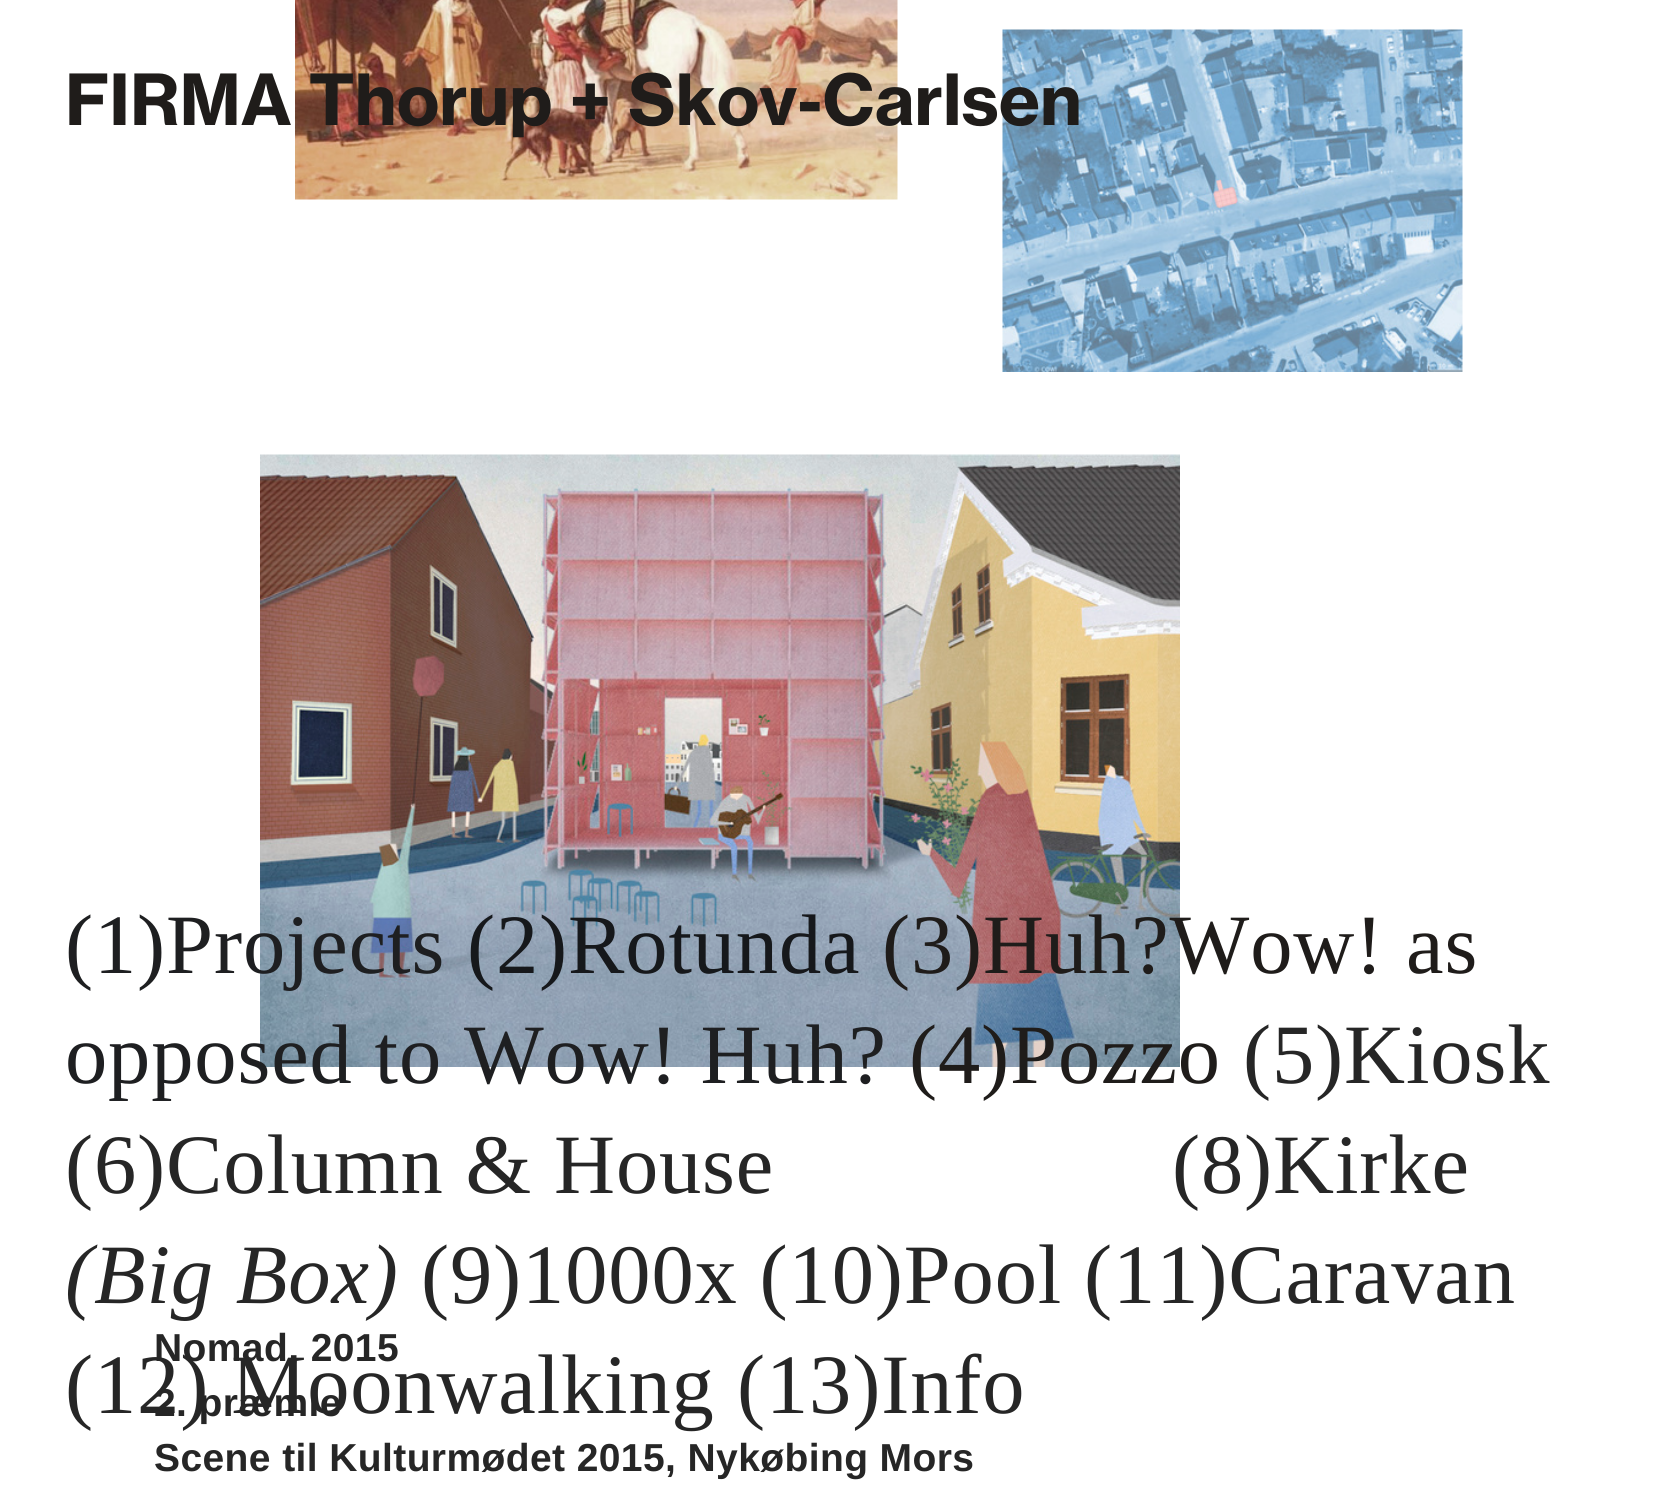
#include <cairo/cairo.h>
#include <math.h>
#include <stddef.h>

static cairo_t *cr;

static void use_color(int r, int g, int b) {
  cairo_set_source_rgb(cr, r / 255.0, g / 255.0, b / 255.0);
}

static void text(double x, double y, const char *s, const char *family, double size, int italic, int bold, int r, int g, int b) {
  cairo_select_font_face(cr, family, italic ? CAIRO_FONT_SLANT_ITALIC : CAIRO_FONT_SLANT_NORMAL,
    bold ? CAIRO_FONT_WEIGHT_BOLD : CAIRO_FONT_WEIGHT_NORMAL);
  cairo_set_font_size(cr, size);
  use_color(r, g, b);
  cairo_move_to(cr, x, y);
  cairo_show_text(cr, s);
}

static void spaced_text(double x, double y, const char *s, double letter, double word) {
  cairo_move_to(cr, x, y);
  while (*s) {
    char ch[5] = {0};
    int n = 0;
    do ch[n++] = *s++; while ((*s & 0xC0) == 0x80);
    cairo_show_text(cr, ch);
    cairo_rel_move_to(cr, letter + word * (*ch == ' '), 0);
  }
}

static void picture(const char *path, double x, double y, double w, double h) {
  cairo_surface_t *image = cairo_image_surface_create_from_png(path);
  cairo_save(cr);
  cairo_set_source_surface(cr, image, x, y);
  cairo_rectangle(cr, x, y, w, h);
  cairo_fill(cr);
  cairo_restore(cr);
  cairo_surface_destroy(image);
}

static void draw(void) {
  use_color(255, 255, 255);
  cairo_paint(cr);
  picture("img_01.png", 295, 0, 603, 200);
  picture("img_02.png", 1002, 29, 461, 343);
  picture("img_03.png", 260, 454, 920, 613);
  text(65, 125, "FIRMA Thorup + Skov-Carlsen", "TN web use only", 69.3, 0, 1, 31, 28, 26);
  cairo_select_font_face(cr, "Liberation Serif", CAIRO_FONT_SLANT_NORMAL, CAIRO_FONT_WEIGHT_NORMAL);
  cairo_set_font_size(cr, 84.5);
  use_color(30, 31, 33);
  spaced_text(65, 973, "(1)Projects", 0.85, 0);
  use_color(22, 24, 27);
  spaced_text(467, 973, "(2)Rotunda", 0.85, 0);
  use_color(31, 28, 26);
  spaced_text(882, 973, "(3)Huh?Wow! as", 0.85, 0);
  use_color(30, 31, 33);
  spaced_text(65, 1083, "opposed to Wow! Huh?", 0.85, 0);
  use_color(31, 28, 26);
  spaced_text(909, 1083, "(4)Pozzo", 0.85, 0);
  use_color(38, 38, 38);
  spaced_text(1243, 1083, "(5)Kiosk", 0.85, 0);
  spaced_text(65, 1193, "(6)Column & House", 0.85, 0);
  spaced_text(1172, 1193, "(8)Kirke", 0.85, 0);
  cairo_select_font_face(cr, "Liberation Serif", CAIRO_FONT_SLANT_ITALIC, CAIRO_FONT_WEIGHT_NORMAL);
  spaced_text(65, 1303, "(Big Box)", 0.85, 0);
  cairo_select_font_face(cr, "Liberation Serif", CAIRO_FONT_SLANT_NORMAL, CAIRO_FONT_WEIGHT_NORMAL);
  spaced_text(421, 1303, "(9)1000x (10)Pool (11)Caravan", 0.85, 0);
  spaced_text(737, 1413, "(13)Info", 0.85, 0);
  cairo_select_font_face(cr, "Liberation Sans", CAIRO_FONT_SLANT_NORMAL, CAIRO_FONT_WEIGHT_BOLD);
  cairo_set_font_size(cr, 39);
  spaced_text(154, 1361, "Nomad, 2015", 0.4, 0);
  spaced_text(154, 1416, "2. præmie", 0.4, 0);
  cairo_select_font_face(cr, "Liberation Serif", CAIRO_FONT_SLANT_NORMAL, CAIRO_FONT_WEIGHT_NORMAL);
  cairo_set_font_size(cr, 84.5);
  spaced_text(65, 1413, "(12) Moonwalking", 0.85, 0);
  cairo_select_font_face(cr, "Liberation Sans", CAIRO_FONT_SLANT_NORMAL, CAIRO_FONT_WEIGHT_BOLD);
  cairo_set_font_size(cr, 39);
  spaced_text(154, 1471, "Scene til Kulturmødet 2015, Nykøbing Mors", 0.4, 0);
}

int main(void) {
  cairo_surface_t *surface = cairo_image_surface_create(CAIRO_FORMAT_RGB24, 1677, 1504);
  cr = cairo_create(surface);
  cairo_font_options_t *options = cairo_font_options_create();
  cairo_font_options_set_hint_metrics(options, CAIRO_HINT_METRICS_OFF);
  cairo_font_options_set_hint_style(options, CAIRO_HINT_STYLE_NONE);
  cairo_set_font_options(cr, options);
  cairo_set_miter_limit(cr, 4);
  draw();
  cairo_surface_write_to_png(surface, "out.png");
  cairo_font_options_destroy(options);
  cairo_destroy(cr);
  cairo_surface_destroy(surface);
  return 0;
}
